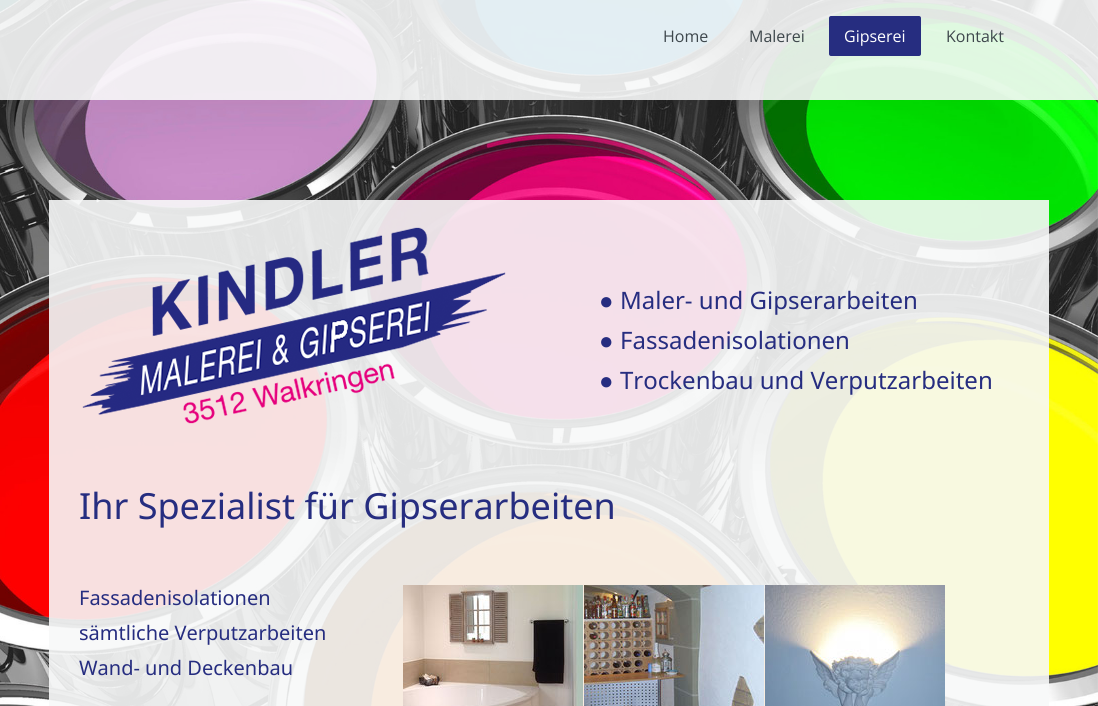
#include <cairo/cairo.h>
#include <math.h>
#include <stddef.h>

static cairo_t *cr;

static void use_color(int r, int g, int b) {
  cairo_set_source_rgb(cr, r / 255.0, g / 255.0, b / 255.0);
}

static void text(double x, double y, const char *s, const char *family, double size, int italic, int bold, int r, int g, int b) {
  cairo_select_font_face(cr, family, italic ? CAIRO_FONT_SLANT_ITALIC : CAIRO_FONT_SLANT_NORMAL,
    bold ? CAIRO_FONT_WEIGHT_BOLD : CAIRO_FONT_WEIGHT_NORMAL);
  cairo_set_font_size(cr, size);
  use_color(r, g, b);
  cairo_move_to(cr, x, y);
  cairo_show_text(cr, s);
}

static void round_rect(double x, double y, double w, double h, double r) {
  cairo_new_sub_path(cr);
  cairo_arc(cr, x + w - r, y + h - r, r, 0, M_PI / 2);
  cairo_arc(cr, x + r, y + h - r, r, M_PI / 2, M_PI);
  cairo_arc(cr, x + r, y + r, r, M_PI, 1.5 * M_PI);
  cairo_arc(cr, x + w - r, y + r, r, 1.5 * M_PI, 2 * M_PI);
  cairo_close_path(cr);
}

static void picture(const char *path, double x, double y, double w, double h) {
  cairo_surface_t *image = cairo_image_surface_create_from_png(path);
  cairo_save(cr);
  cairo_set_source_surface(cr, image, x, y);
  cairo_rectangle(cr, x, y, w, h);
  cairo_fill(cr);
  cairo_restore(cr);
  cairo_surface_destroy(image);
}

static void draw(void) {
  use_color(255, 255, 255);
  cairo_paint(cr);
  picture("img_01.png", 0, 0, 1098, 706);
  cairo_set_source_rgba(cr, 0.969, 0.973, 0.973, 0.9);
  cairo_rectangle(cr, 0, 0, 1098, 100);
  cairo_fill(cr);
  use_color(38, 45, 128);
  round_rect(829, 16, 92, 40, 2);
  cairo_fill(cr);
  cairo_set_source_rgba(cr, 0.969, 0.973, 0.973, 0.9);
  cairo_rectangle(cr, 49, 200, 1000, 506);
  cairo_fill(cr);
  picture("img_02.png", 82, 227, 424, 197);
  picture("img_03.png", 403, 585, 180, 121);
  picture("img_04.png", 584, 585, 180, 121);
  picture("img_05.png", 765, 585, 180, 121);
  text(663, 42, "Home", "Open Sans", 16, 0, 0, 62, 71, 76);
  text(749, 42, "Malerei", "Open Sans", 16, 0, 0, 62, 71, 76);
  text(844, 42, "Gipserei", "Open Sans", 16, 0, 0, 255, 255, 255);
  text(946, 42, "Kontakt", "Open Sans", 16, 0, 0, 62, 71, 76);
  text(599, 309, "●", "Liberation Sans", 24, 0, 0, 38, 45, 128);
  text(620, 309, "Maler- und Gipserarbeiten", "Noto Sans", 24, 0, 0, 38, 45, 128);
  text(599, 349, "●", "Liberation Sans", 24, 0, 0, 38, 45, 128);
  text(620, 349, "Fassadenisolationen", "Noto Sans", 24, 0, 0, 38, 45, 128);
  text(599, 389, "●", "Liberation Sans", 24, 0, 0, 38, 45, 128);
  text(620, 389, "Trockenbau und Verputzarbeiten", "Noto Sans", 24, 0, 0, 38, 45, 128);
  text(79, 519, "Ihr Spezialist für Gipserarbeiten", "Noto Sans", 36, 0, 0, 38, 45, 128);
  text(79, 605, "Fassadenisolationen", "Noto Sans", 20, 0, 0, 38, 45, 128);
  text(79, 640, "sämtliche Verputzarbeiten", "Noto Sans", 20, 0, 0, 38, 45, 128);
  text(79, 675, "Wand- und Deckenbau", "Noto Sans", 20, 0, 0, 38, 45, 128);
}

int main(void) {
  cairo_surface_t *surface = cairo_image_surface_create(CAIRO_FORMAT_RGB24, 1098, 706);
  cr = cairo_create(surface);
  cairo_font_options_t *options = cairo_font_options_create();
  cairo_font_options_set_hint_metrics(options, CAIRO_HINT_METRICS_OFF);
  cairo_font_options_set_hint_style(options, CAIRO_HINT_STYLE_NONE);
  cairo_set_font_options(cr, options);
  cairo_set_miter_limit(cr, 4);
  draw();
  cairo_surface_write_to_png(surface, "out.png");
  cairo_font_options_destroy(options);
  cairo_destroy(cr);
  cairo_surface_destroy(surface);
  return 0;
}
